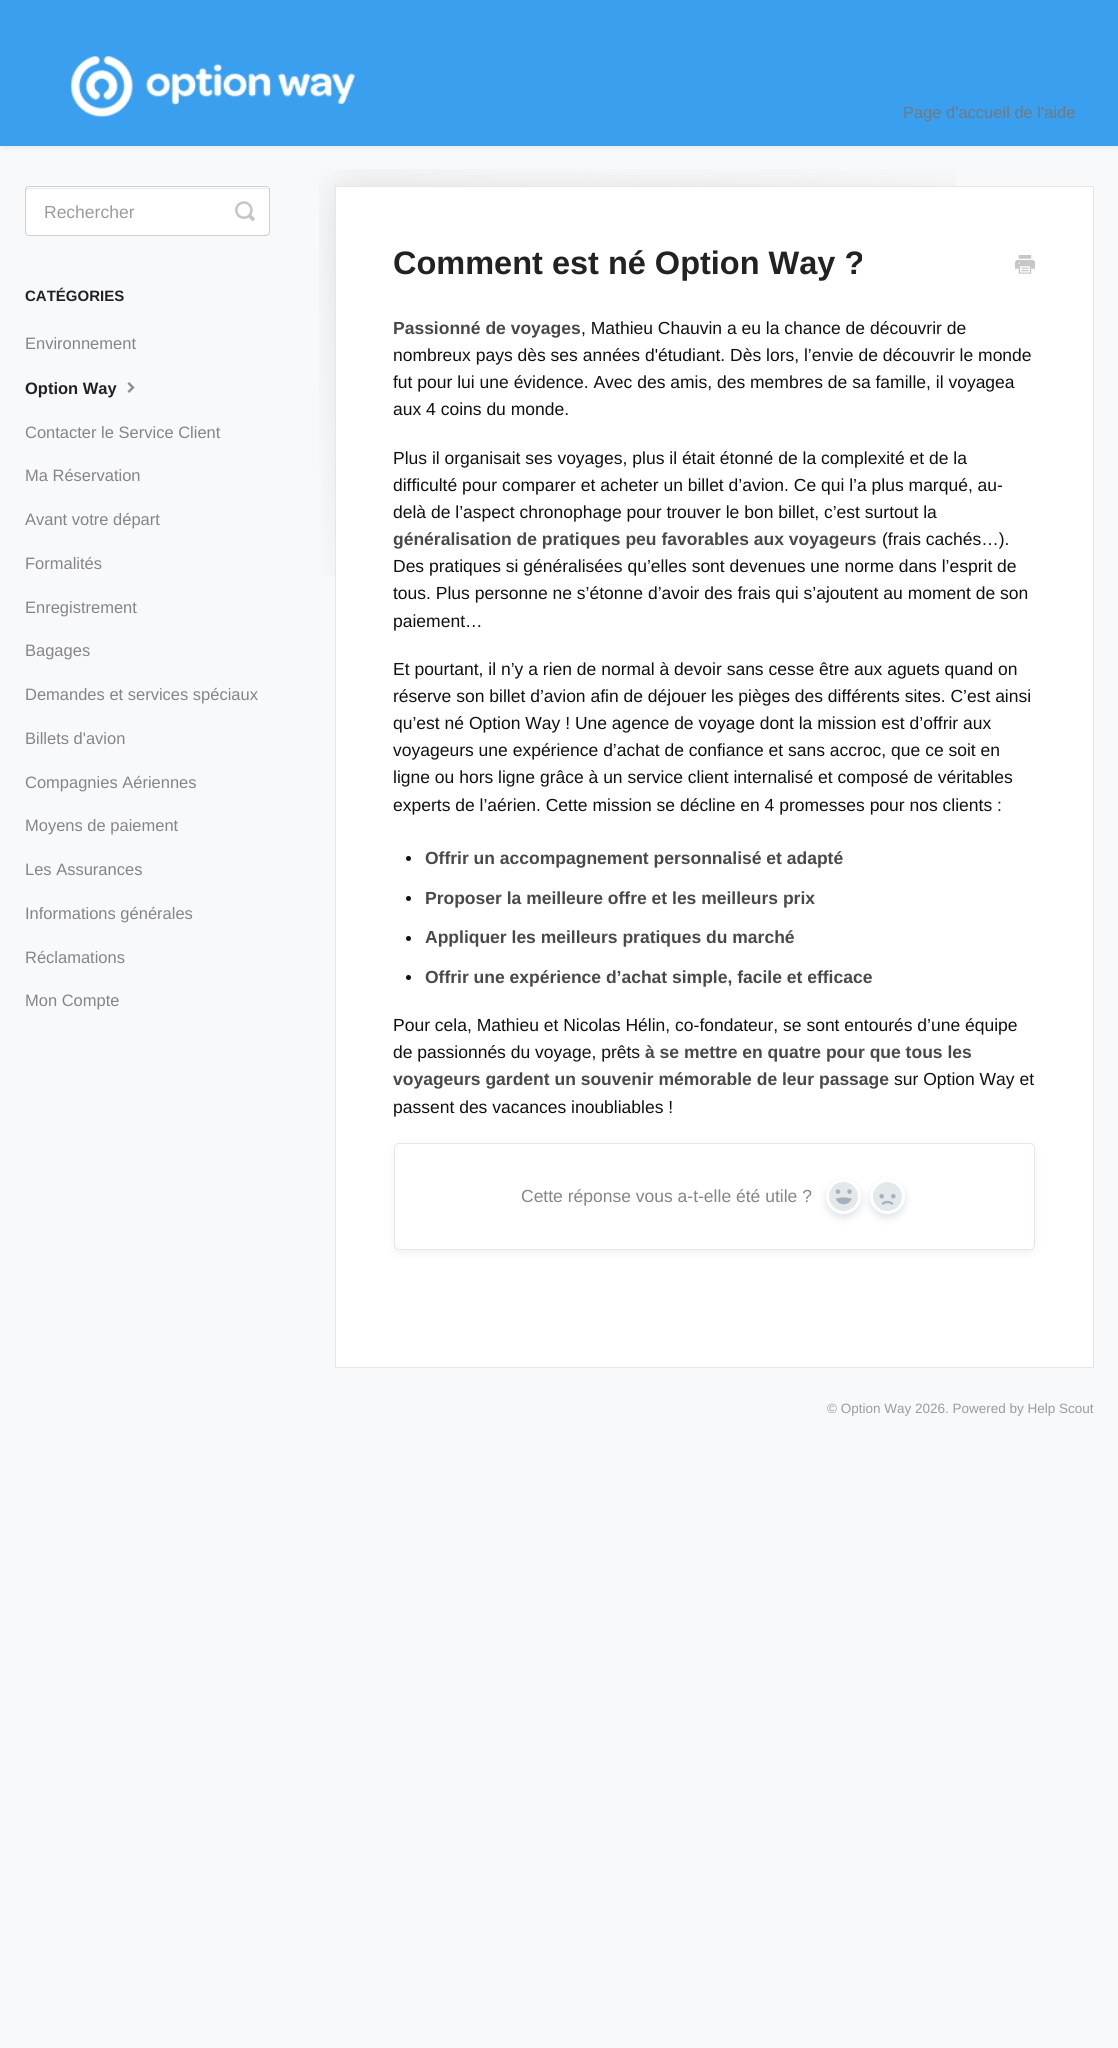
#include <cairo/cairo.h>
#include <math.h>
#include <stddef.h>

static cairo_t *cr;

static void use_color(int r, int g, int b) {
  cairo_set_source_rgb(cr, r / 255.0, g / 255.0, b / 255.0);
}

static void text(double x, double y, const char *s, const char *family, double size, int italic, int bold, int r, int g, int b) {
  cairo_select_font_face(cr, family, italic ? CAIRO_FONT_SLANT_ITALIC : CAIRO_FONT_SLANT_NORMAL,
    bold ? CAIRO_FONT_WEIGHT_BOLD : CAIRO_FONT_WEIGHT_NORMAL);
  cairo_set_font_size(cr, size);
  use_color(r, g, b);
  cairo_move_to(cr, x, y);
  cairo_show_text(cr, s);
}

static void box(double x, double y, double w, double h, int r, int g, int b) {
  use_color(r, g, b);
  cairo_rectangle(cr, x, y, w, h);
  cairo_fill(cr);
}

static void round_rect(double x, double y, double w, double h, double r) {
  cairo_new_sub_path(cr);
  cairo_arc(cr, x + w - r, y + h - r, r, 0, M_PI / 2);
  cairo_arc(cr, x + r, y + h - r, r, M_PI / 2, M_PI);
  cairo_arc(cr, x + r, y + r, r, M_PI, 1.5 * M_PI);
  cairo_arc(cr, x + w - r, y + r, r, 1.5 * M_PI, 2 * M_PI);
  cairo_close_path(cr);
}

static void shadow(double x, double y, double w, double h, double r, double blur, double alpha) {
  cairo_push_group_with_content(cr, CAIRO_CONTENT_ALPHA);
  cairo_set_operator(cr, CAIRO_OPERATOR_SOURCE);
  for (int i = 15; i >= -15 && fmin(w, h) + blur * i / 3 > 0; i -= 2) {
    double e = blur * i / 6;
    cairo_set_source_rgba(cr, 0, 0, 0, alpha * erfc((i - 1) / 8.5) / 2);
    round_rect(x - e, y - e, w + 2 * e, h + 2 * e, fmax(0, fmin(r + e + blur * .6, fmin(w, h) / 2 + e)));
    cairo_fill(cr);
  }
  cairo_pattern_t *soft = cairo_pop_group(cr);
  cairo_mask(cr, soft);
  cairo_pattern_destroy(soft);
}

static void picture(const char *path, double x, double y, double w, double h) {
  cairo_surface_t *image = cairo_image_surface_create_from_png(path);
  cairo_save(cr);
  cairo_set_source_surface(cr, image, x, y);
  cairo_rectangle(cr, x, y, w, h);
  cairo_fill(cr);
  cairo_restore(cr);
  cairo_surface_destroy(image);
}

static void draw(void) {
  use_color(247, 249, 250);
  cairo_paint(cr);
  use_color(0, 0, 0);
  shadow(0, 1, 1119, 147, 0, 2.5, 0.07);
  box(0, 0, 1118, 146, 58, 159, 238);
  picture("img_01.png", 71, 56, 285, 61);
  use_color(255, 255, 255);
  round_rect(25, 186, 245, 50, 4);
  cairo_fill(cr);
  use_color(236, 236, 236);
  cairo_new_path(cr);
  cairo_move_to(cr, 29, 189);
  cairo_line_to(cr, 266, 189);
  cairo_curve_to(cr, 268, 189, 269, 190, 269, 191);
  cairo_curve_to(cr, 269, 189, 268, 188, 266, 188);
  cairo_line_to(cr, 28, 188);
  cairo_line_to(cr, 26, 189);
  cairo_line_to(cr, 26, 191);
  cairo_curve_to(cr, 26, 190, 27, 189, 29, 189);
  cairo_close_path(cr);
  cairo_fill(cr);
  round_rect(25.5, 186.5, 244, 49, 3.5);
  use_color(208, 208, 208);
  cairo_set_line_width(cr, 1);
  cairo_stroke(cr);
  picture("img_02.png", 235, 201, 20, 21);
  picture("img_03.png", 127, 382, 8, 11);
  picture("img_04.png", 319, 169, 637, 407);
  use_color(255, 255, 255);
  cairo_rectangle(cr, 335.5, 186.5, 758, 1181);
  cairo_fill_preserve(cr);
  use_color(233, 229, 229);
  cairo_stroke(cr);
  picture("img_05.png", 1015, 255, 20, 19);
  use_color(17, 16, 16);
  cairo_arc(cr, 408.5, 858.5, 2.5, 0, 2 * M_PI);
  cairo_fill(cr);
  cairo_arc(cr, 408.5, 898.5, 2.5, 0, 2 * M_PI);
  cairo_fill(cr);
  cairo_arc(cr, 408.5, 938.5, 2.5, 0, 2 * M_PI);
  cairo_fill(cr);
  cairo_arc(cr, 408.5, 977.5, 2.5, 0, 2 * M_PI);
  cairo_fill(cr);
  use_color(0, 0, 0);
  shadow(394, 1146, 641, 108, 5, 4, 0.05);
  use_color(255, 255, 255);
  round_rect(394.5, 1143.5, 640, 106, 4.5);
  cairo_fill_preserve(cr);
  use_color(233, 229, 229);
  cairo_stroke(cr);
  use_color(193, 203, 212);
  shadow(826, 1183, 35, 35, 17.5, 4, 0.5);
  use_color(227, 232, 235);
  cairo_arc(cr, 843.5, 1196.5, 16, 0, 2 * M_PI);
  cairo_fill_preserve(cr);
  use_color(255, 255, 255);
  cairo_set_line_width(cr, 3);
  cairo_stroke(cr);
  picture("img_06.png", 835, 1189, 17, 16);
  use_color(193, 203, 212);
  shadow(870, 1183, 35, 35, 17.5, 4, 0.5);
  use_color(227, 232, 235);
  cairo_arc(cr, 887.5, 1196.5, 16, 0, 2 * M_PI);
  cairo_fill_preserve(cr);
  use_color(255, 255, 255);
  cairo_stroke(cr);
  picture("img_07.png", 879, 1194, 17, 11);
  text(903, 118, "Page d'accueil de l'aide", "Liberation Sans", 16.5, 0, 0, 113, 121, 128);
  text(44, 218, "Rechercher", "Liberation Sans", 17.5, 0, 0, 155, 155, 155);
  text(25, 301, "CATÉGORIES", "Liberation Sans", 15, 0, 1, 34, 34, 34);
  text(25, 349, "Environnement", "Liberation Sans", 16.5, 0, 0, 133, 133, 133);
  text(25, 394, "Option Way", "Liberation Sans", 16.5, 0, 1, 34, 34, 34);
  text(25, 438, "Contacter le Service Client", "Liberation Sans", 16.5, 0, 0, 133, 133, 133);
  text(25, 481, "Ma Réservation", "Liberation Sans", 16.5, 0, 0, 133, 133, 133);
  text(25, 525, "Avant votre départ", "Liberation Sans", 16.5, 0, 0, 133, 133, 133);
  text(25, 569, "Formalités", "Liberation Sans", 16.5, 0, 0, 133, 133, 133);
  text(25, 613, "Enregistrement", "Liberation Sans", 16.5, 0, 0, 133, 133, 133);
  text(25, 656, "Bagages", "Liberation Sans", 16.5, 0, 0, 133, 133, 133);
  text(25, 700, "Demandes et services spéciaux", "Liberation Sans", 16.5, 0, 0, 133, 133, 133);
  text(25, 744, "Billets d'avion", "Liberation Sans", 16.5, 0, 0, 133, 133, 133);
  text(25, 788, "Compagnies Aériennes", "Liberation Sans", 16.5, 0, 0, 133, 133, 133);
  text(25, 831, "Moyens de paiement", "Liberation Sans", 16.5, 0, 0, 133, 133, 133);
  text(25, 875, "Les Assurances", "Liberation Sans", 16.5, 0, 0, 133, 133, 133);
  text(25, 919, "Informations générales", "Liberation Sans", 16.5, 0, 0, 133, 133, 133);
  text(25, 963, "Réclamations", "Liberation Sans", 16.5, 0, 0, 133, 133, 133);
  text(25, 1006, "Mon Compte", "Liberation Sans", 16.5, 0, 0, 133, 133, 133);
  text(393, 274, "Comment est né Option Way ?", "Liberation Sans", 32.5, 0, 1, 34, 34, 34);
  text(393, 334, "Passionné de voyages", "Liberation Sans", 17.5, 0, 1, 73, 73, 73);
  text(581, 334, ", Mathieu Chauvin a eu la chance de découvrir de", "Liberation Sans", 17.5, 0, 0, 17, 16, 16);
  text(393, 361, "nombreux pays dès ses années d'étudiant. Dès lors, l’envie de découvrir le monde", "Liberation Sans", 17.5, 0, 0, 17, 16, 16);
  text(393, 388, "fut pour lui une évidence. Avec des amis, des membres de sa famille, il voyagea", "Liberation Sans", 17.5, 0, 0, 17, 16, 16);
  text(393, 415, "aux 4 coins du monde.", "Liberation Sans", 17.5, 0, 0, 17, 16, 16);
  text(393, 464, "Plus il organisait ses voyages, plus il était étonné de la complexité et de la", "Liberation Sans", 17.5, 0, 0, 17, 16, 16);
  text(393, 491, "difficulté pour comparer et acheter un billet d’avion. Ce qui l’a plus marqué, au-", "Liberation Sans", 17.5, 0, 0, 17, 16, 16);
  text(393, 518, "delà de l’aspect chronophage pour trouver le bon billet, c’est surtout la", "Liberation Sans", 17.5, 0, 0, 17, 16, 16);
  text(393, 545, "généralisation de pratiques peu favorables aux voyageurs", "Liberation Sans", 17.5, 0, 1, 73, 73, 73);
  text(882, 545, "(frais cachés…).", "Liberation Sans", 17.5, 0, 0, 17, 16, 16);
  text(393, 572, "Des pratiques si généralisées qu’elles sont devenues une norme dans l’esprit de", "Liberation Sans", 17.5, 0, 0, 17, 16, 16);
  text(393, 599, "tous. Plus personne ne s’étonne d’avoir des frais qui s’ajoutent au moment de son", "Liberation Sans", 17.5, 0, 0, 17, 16, 16);
  text(393, 627, "paiement…", "Liberation Sans", 17.5, 0, 0, 17, 16, 16);
  text(393, 675, "Et pourtant, il n’y a rien de normal à devoir sans cesse être aux aguets quand on", "Liberation Sans", 17.5, 0, 0, 17, 16, 16);
  text(393, 702, "réserve son billet d’avion afin de déjouer les pièges des différents sites. C’est ainsi", "Liberation Sans", 17.5, 0, 0, 17, 16, 16);
  text(393, 729, "qu’est né Option Way ! Une agence de voyage dont la mission est d’offrir aux", "Liberation Sans", 17.5, 0, 0, 17, 16, 16);
  text(393, 756, "voyageurs une expérience d’achat de confiance et sans accroc, que ce soit en", "Liberation Sans", 17.5, 0, 0, 17, 16, 16);
  text(393, 783, "ligne ou hors ligne grâce à un service client internalisé et composé de véritables", "Liberation Sans", 17.5, 0, 0, 17, 16, 16);
  text(393, 811, "experts de l’aérien. Cette mission se décline en 4 promesses pour nos clients :", "Liberation Sans", 17.5, 0, 0, 17, 16, 16);
  text(425, 864, "Offrir un accompagnement personnalisé et adapté", "Liberation Sans", 17.5, 0, 1, 73, 73, 73);
  text(425, 904, "Proposer la meilleure offre et les meilleurs prix", "Liberation Sans", 17.5, 0, 1, 73, 73, 73);
  text(425, 943, "Appliquer les meilleurs pratiques du marché", "Liberation Sans", 17.5, 0, 1, 73, 73, 73);
  text(425, 983, "Offrir une expérience d’achat simple, facile et efficace", "Liberation Sans", 17.5, 0, 1, 73, 73, 73);
  text(393, 1031, "Pour cela, Mathieu et Nicolas Hélin, co-fondateur, se sont entourés d’une équipe", "Liberation Sans", 17.5, 0, 0, 17, 16, 16);
  text(393, 1058, "de passionnés du voyage, prêts", "Liberation Sans", 17.5, 0, 0, 17, 16, 16);
  text(645, 1058, "à se mettre en quatre pour que tous les", "Liberation Sans", 17.5, 0, 1, 73, 73, 73);
  text(393, 1085, "voyageurs gardent un souvenir mémorable de leur passage", "Liberation Sans", 17.5, 0, 1, 73, 73, 73);
  text(894, 1085, "sur Option Way et", "Liberation Sans", 17.5, 0, 0, 17, 16, 16);
  text(393, 1113, "passent des vacances inoubliables !", "Liberation Sans", 17.5, 0, 0, 17, 16, 16);
  text(521, 1202, "Cette réponse vous a-t-elle été utile ?", "Liberation Sans", 17.5, 0, 0, 133, 133, 133);
  text(827, 1413, "© Option Way 2026. Powered by Help Scout", "Liberation Sans", 13.5, 0, 0, 155, 155, 155);
}

int main(void) {
  cairo_surface_t *surface = cairo_image_surface_create(CAIRO_FORMAT_RGB24, 1118, 2048);
  cr = cairo_create(surface);
  cairo_font_options_t *options = cairo_font_options_create();
  cairo_font_options_set_hint_metrics(options, CAIRO_HINT_METRICS_OFF);
  cairo_font_options_set_hint_style(options, CAIRO_HINT_STYLE_NONE);
  cairo_set_font_options(cr, options);
  cairo_set_miter_limit(cr, 4);
  draw();
  cairo_surface_write_to_png(surface, "out.png");
  cairo_font_options_destroy(options);
  cairo_destroy(cr);
  cairo_surface_destroy(surface);
  return 0;
}
